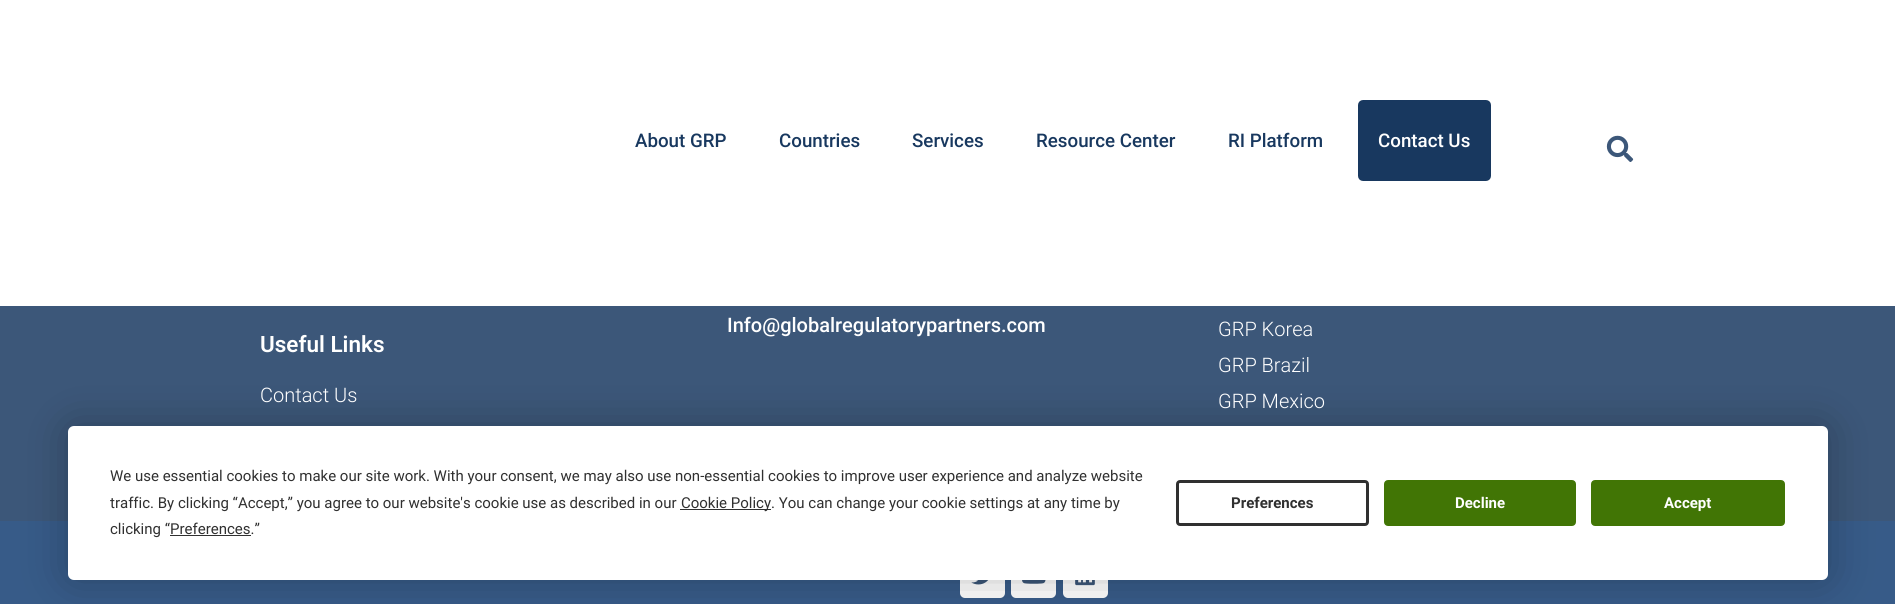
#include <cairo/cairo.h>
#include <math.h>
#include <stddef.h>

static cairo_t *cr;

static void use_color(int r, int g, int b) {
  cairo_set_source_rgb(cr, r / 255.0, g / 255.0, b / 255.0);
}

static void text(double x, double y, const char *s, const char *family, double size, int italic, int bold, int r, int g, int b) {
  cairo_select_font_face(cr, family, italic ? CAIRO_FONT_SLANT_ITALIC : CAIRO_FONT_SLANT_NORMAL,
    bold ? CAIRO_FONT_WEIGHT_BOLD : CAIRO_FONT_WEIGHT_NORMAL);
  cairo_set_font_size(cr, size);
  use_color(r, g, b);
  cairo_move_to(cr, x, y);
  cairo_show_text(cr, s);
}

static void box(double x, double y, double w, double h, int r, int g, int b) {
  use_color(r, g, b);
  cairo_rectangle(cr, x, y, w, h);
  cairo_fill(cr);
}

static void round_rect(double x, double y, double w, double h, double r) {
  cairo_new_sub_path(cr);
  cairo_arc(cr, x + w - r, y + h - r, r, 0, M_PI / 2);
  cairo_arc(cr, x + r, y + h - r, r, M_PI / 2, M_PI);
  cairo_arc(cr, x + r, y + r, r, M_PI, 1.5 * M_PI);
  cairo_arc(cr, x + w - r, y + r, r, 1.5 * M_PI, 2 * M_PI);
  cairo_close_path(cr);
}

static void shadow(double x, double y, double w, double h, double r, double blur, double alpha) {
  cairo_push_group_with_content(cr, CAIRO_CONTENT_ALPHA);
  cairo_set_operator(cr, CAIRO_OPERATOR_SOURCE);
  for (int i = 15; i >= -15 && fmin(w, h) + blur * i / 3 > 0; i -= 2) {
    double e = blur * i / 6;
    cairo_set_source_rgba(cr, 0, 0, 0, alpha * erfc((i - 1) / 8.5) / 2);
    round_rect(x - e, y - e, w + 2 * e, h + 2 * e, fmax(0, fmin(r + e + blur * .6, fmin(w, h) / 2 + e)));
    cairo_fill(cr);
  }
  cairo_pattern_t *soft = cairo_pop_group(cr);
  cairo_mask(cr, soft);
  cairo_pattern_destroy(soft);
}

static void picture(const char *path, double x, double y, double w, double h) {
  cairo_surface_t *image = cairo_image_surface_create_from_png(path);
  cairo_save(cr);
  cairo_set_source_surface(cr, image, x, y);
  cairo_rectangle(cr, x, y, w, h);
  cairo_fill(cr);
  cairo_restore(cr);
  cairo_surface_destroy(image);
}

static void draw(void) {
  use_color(60, 87, 121);
  cairo_paint(cr);
  box(0, 0, 1895, 306, 255, 255, 255);
  use_color(24, 56, 95);
  round_rect(1359.5, 101.5, 130, 78, 3.5);
  cairo_fill_preserve(cr);
  cairo_set_line_width(cr, 3);
  cairo_stroke(cr);
  picture("img_01.png", 1606, 135, 28, 27);
  box(0, 521, 1895, 83, 55, 91, 136);
  use_color(255, 255, 255);
  round_rect(960, 553, 45, 45, 5);
  cairo_fill(cr);
  picture("img_02.png", 971, 580, 18, 5);
  round_rect(1011, 553, 45, 45, 5);
  cairo_fill(cr);
  picture("img_03.png", 1022, 580, 24, 4);
  round_rect(1063, 553, 45, 45, 5);
  cairo_fill(cr);
  picture("img_04.png", 1075, 580, 20, 6);
  use_color(0, 0, 0);
  shadow(68, 426, 1760, 154, 6, 22, 0.25);
  use_color(255, 255, 255);
  round_rect(68, 426, 1760, 154, 6);
  cairo_fill(cr);
  box(680, 509, 91, 1, 48, 48, 48);
  box(170, 535, 81, 1, 48, 48, 48);
  round_rect(1177.5, 481.5, 190, 43, 2.5);
  cairo_stroke(cr);
  use_color(65, 117, 5);
  round_rect(1385.5, 481.5, 189, 43, 2.5);
  cairo_fill_preserve(cr);
  cairo_stroke(cr);
  round_rect(1592.5, 481.5, 191, 43, 2.5);
  cairo_fill_preserve(cr);
  cairo_stroke(cr);
  text(635, 147, "About GRP", "Roboto Medium", 18.75, 0, 0, 24, 56, 95);
  text(779, 147, "Countries", "Roboto Medium", 18.75, 0, 0, 24, 56, 95);
  text(912, 147, "Services", "Roboto Medium", 18.75, 0, 0, 24, 56, 95);
  text(1036, 147, "Resource Center", "Roboto Medium", 18.75, 0, 0, 24, 56, 95);
  text(1228, 147, "RI Platform", "Roboto Medium", 18.75, 0, 0, 24, 56, 95);
  text(1378, 147, "Contact Us", "Roboto Medium", 18.75, 0, 0, 255, 255, 255);
  text(260, 352, "Useful Links", "Roboto SemiBold", 22.5, 0, 0, 255, 255, 255);
  text(260, 402, "Contact Us", "Roboto Light", 20, 0, 0, 255, 255, 255);
  text(727, 332, "Info@globalregulatorypartners.com", "Roboto Medium", 20, 0, 0, 255, 255, 255);
  text(1218, 336, "GRP Korea", "Roboto Light", 20, 0, 0, 255, 255, 255);
  text(1218, 372, "GRP Brazil", "Roboto Light", 20, 0, 0, 255, 255, 255);
  text(1218, 408, "GRP Mexico", "Roboto Light", 20, 0, 0, 255, 255, 255);
  text(110, 481, "We use essential cookies to make our site work. With your consent, we may also use non-essential cookies to improve user experience and analyze website", "Roboto", 15, 0, 0, 48, 48, 48);
  text(110, 508, "traffic. By clicking “Accept,” you agree to our website's cookie use as described in our", "Roboto", 15, 0, 0, 48, 48, 48);
  text(681, 508, "Cookie Policy. You can change your cookie settings at any time by", "Roboto", 15, 0, 0, 48, 48, 48);
  text(110, 534, "clicking “Preferences.”", "Roboto", 15, 0, 0, 48, 48, 48);
  text(1231, 508, "Preferences", "Roboto", 15, 0, 1, 48, 48, 48);
  text(1455, 508, "Decline", "Roboto", 15, 0, 1, 255, 255, 255);
  text(1664, 508, "Accept", "Roboto", 15, 0, 1, 255, 255, 255);
}

int main(void) {
  cairo_surface_t *surface = cairo_image_surface_create(CAIRO_FORMAT_RGB24, 1895, 604);
  cr = cairo_create(surface);
  cairo_font_options_t *options = cairo_font_options_create();
  cairo_font_options_set_hint_metrics(options, CAIRO_HINT_METRICS_OFF);
  cairo_font_options_set_hint_style(options, CAIRO_HINT_STYLE_NONE);
  cairo_set_font_options(cr, options);
  cairo_set_miter_limit(cr, 4);
  draw();
  cairo_surface_write_to_png(surface, "out.png");
  cairo_font_options_destroy(options);
  cairo_destroy(cr);
  cairo_surface_destroy(surface);
  return 0;
}
